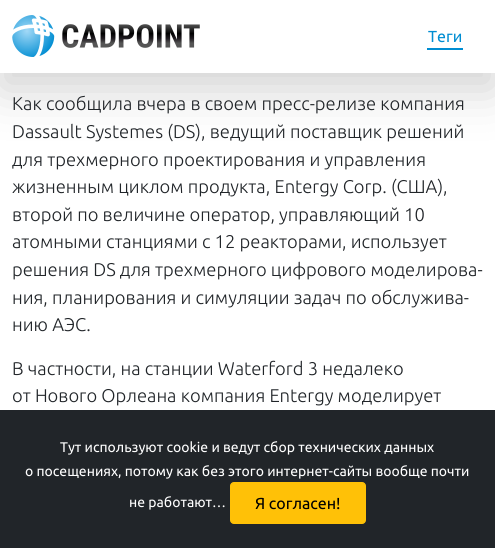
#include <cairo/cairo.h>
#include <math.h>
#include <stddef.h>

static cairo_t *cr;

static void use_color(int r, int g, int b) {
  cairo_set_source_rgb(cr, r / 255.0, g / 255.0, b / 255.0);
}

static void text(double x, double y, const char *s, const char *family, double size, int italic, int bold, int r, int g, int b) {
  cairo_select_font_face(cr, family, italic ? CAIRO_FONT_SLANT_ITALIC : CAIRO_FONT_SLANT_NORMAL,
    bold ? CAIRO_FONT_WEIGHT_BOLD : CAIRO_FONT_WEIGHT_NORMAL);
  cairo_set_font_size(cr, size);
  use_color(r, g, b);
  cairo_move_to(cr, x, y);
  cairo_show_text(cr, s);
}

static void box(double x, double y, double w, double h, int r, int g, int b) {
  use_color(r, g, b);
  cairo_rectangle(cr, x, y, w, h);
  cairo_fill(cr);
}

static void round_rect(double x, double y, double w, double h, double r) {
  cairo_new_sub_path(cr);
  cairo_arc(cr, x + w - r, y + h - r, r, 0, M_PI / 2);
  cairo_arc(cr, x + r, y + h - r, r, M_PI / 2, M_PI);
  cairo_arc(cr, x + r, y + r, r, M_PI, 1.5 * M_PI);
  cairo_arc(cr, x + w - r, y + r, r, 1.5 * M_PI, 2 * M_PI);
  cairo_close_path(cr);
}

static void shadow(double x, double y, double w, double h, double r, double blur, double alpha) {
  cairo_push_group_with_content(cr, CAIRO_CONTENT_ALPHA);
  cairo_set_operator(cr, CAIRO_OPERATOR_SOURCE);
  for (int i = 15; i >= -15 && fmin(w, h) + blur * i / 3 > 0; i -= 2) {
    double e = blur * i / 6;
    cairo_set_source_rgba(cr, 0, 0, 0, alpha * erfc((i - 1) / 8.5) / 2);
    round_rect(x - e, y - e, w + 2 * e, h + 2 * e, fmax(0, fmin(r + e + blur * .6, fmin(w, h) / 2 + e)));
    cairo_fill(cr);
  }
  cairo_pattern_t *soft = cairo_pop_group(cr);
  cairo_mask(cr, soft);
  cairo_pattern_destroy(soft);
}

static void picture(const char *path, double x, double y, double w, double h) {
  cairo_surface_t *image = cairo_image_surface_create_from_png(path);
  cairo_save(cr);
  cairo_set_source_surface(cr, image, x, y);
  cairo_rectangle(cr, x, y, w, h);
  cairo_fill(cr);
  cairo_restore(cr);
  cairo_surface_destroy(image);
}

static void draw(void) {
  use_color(255, 255, 255);
  cairo_paint(cr);
  use_color(0, 0, 0);
  shadow(0, 16, 495, 73, 0, 24, 0.18);
  box(0, 0, 495, 73, 255, 255, 255);
  picture("img_01.png", 12, 15, 188, 42);
  box(427, 48, 36, 2, 0, 141, 210);
  box(0, 410, 495, 138, 33, 37, 41);
  use_color(255, 193, 7);
  round_rect(230.5, 482.5, 135, 41, 3.5);
  cairo_fill_preserve(cr);
  cairo_set_line_width(cr, 1);
  cairo_stroke(cr);
  text(428, 42, "Теги", "Ubuntu", 16, 0, 0, 0, 141, 210);
  text(12, 110, "Как сообщила вчера в своем пресс-релизе компания", "Ubuntu Light", 18.4, 0, 0, 33, 37, 41);
  text(12, 138, "Dassault Systemes (DS), ведущий поставщик решений", "Ubuntu Light", 18.4, 0, 0, 33, 37, 41);
  text(12, 166, "для трехмерного проектирования и управления", "Ubuntu Light", 18.4, 0, 0, 33, 37, 41);
  text(12, 193, "жизненным циклом продукта, Entergy Corp. (США),", "Ubuntu Light", 18.4, 0, 0, 33, 37, 41);
  text(12, 221, "второй по величине оператор, управляющий 10", "Ubuntu Light", 18.4, 0, 0, 33, 37, 41);
  text(12, 248, "атомными станциями с 12 реакторами, использует", "Ubuntu Light", 18.4, 0, 0, 33, 37, 41);
  text(12, 276, "решения DS для трехмерного цифрового моделирова-", "Ubuntu Light", 18.4, 0, 0, 33, 37, 41);
  text(12, 304, "ния, планирования и симуляции задач по обслужива-", "Ubuntu Light", 18.4, 0, 0, 33, 37, 41);
  text(12, 331, "нию АЭС.", "Ubuntu Light", 18.4, 0, 0, 33, 37, 41);
  text(12, 375, "В частности, на станции Waterford 3 недалеко", "Ubuntu Light", 18.4, 0, 0, 33, 37, 41);
  text(12, 402, "от Нового Орлеана компания Entergy моделирует", "Ubuntu Light", 18.4, 0, 0, 33, 37, 41);
  text(60, 452, "Тут используют cookie и ведут сбор технических данных", "Ubuntu", 14, 0, 0, 255, 255, 255);
  text(25, 476, "о посещениях, потому как без этого интернет-сайты вообще почти", "Ubuntu", 14, 0, 0, 255, 255, 255);
  text(129, 507, "не работают…", "Ubuntu", 14, 0, 0, 255, 255, 255);
  text(255, 509, "Я согласен!", "Ubuntu", 16, 0, 0, 0, 0, 0);
}

int main(void) {
  cairo_surface_t *surface = cairo_image_surface_create(CAIRO_FORMAT_RGB24, 495, 548);
  cr = cairo_create(surface);
  cairo_font_options_t *options = cairo_font_options_create();
  cairo_font_options_set_hint_metrics(options, CAIRO_HINT_METRICS_OFF);
  cairo_font_options_set_hint_style(options, CAIRO_HINT_STYLE_NONE);
  cairo_set_font_options(cr, options);
  cairo_set_miter_limit(cr, 4);
  draw();
  cairo_surface_write_to_png(surface, "out.png");
  cairo_font_options_destroy(options);
  cairo_destroy(cr);
  cairo_surface_destroy(surface);
  return 0;
}
